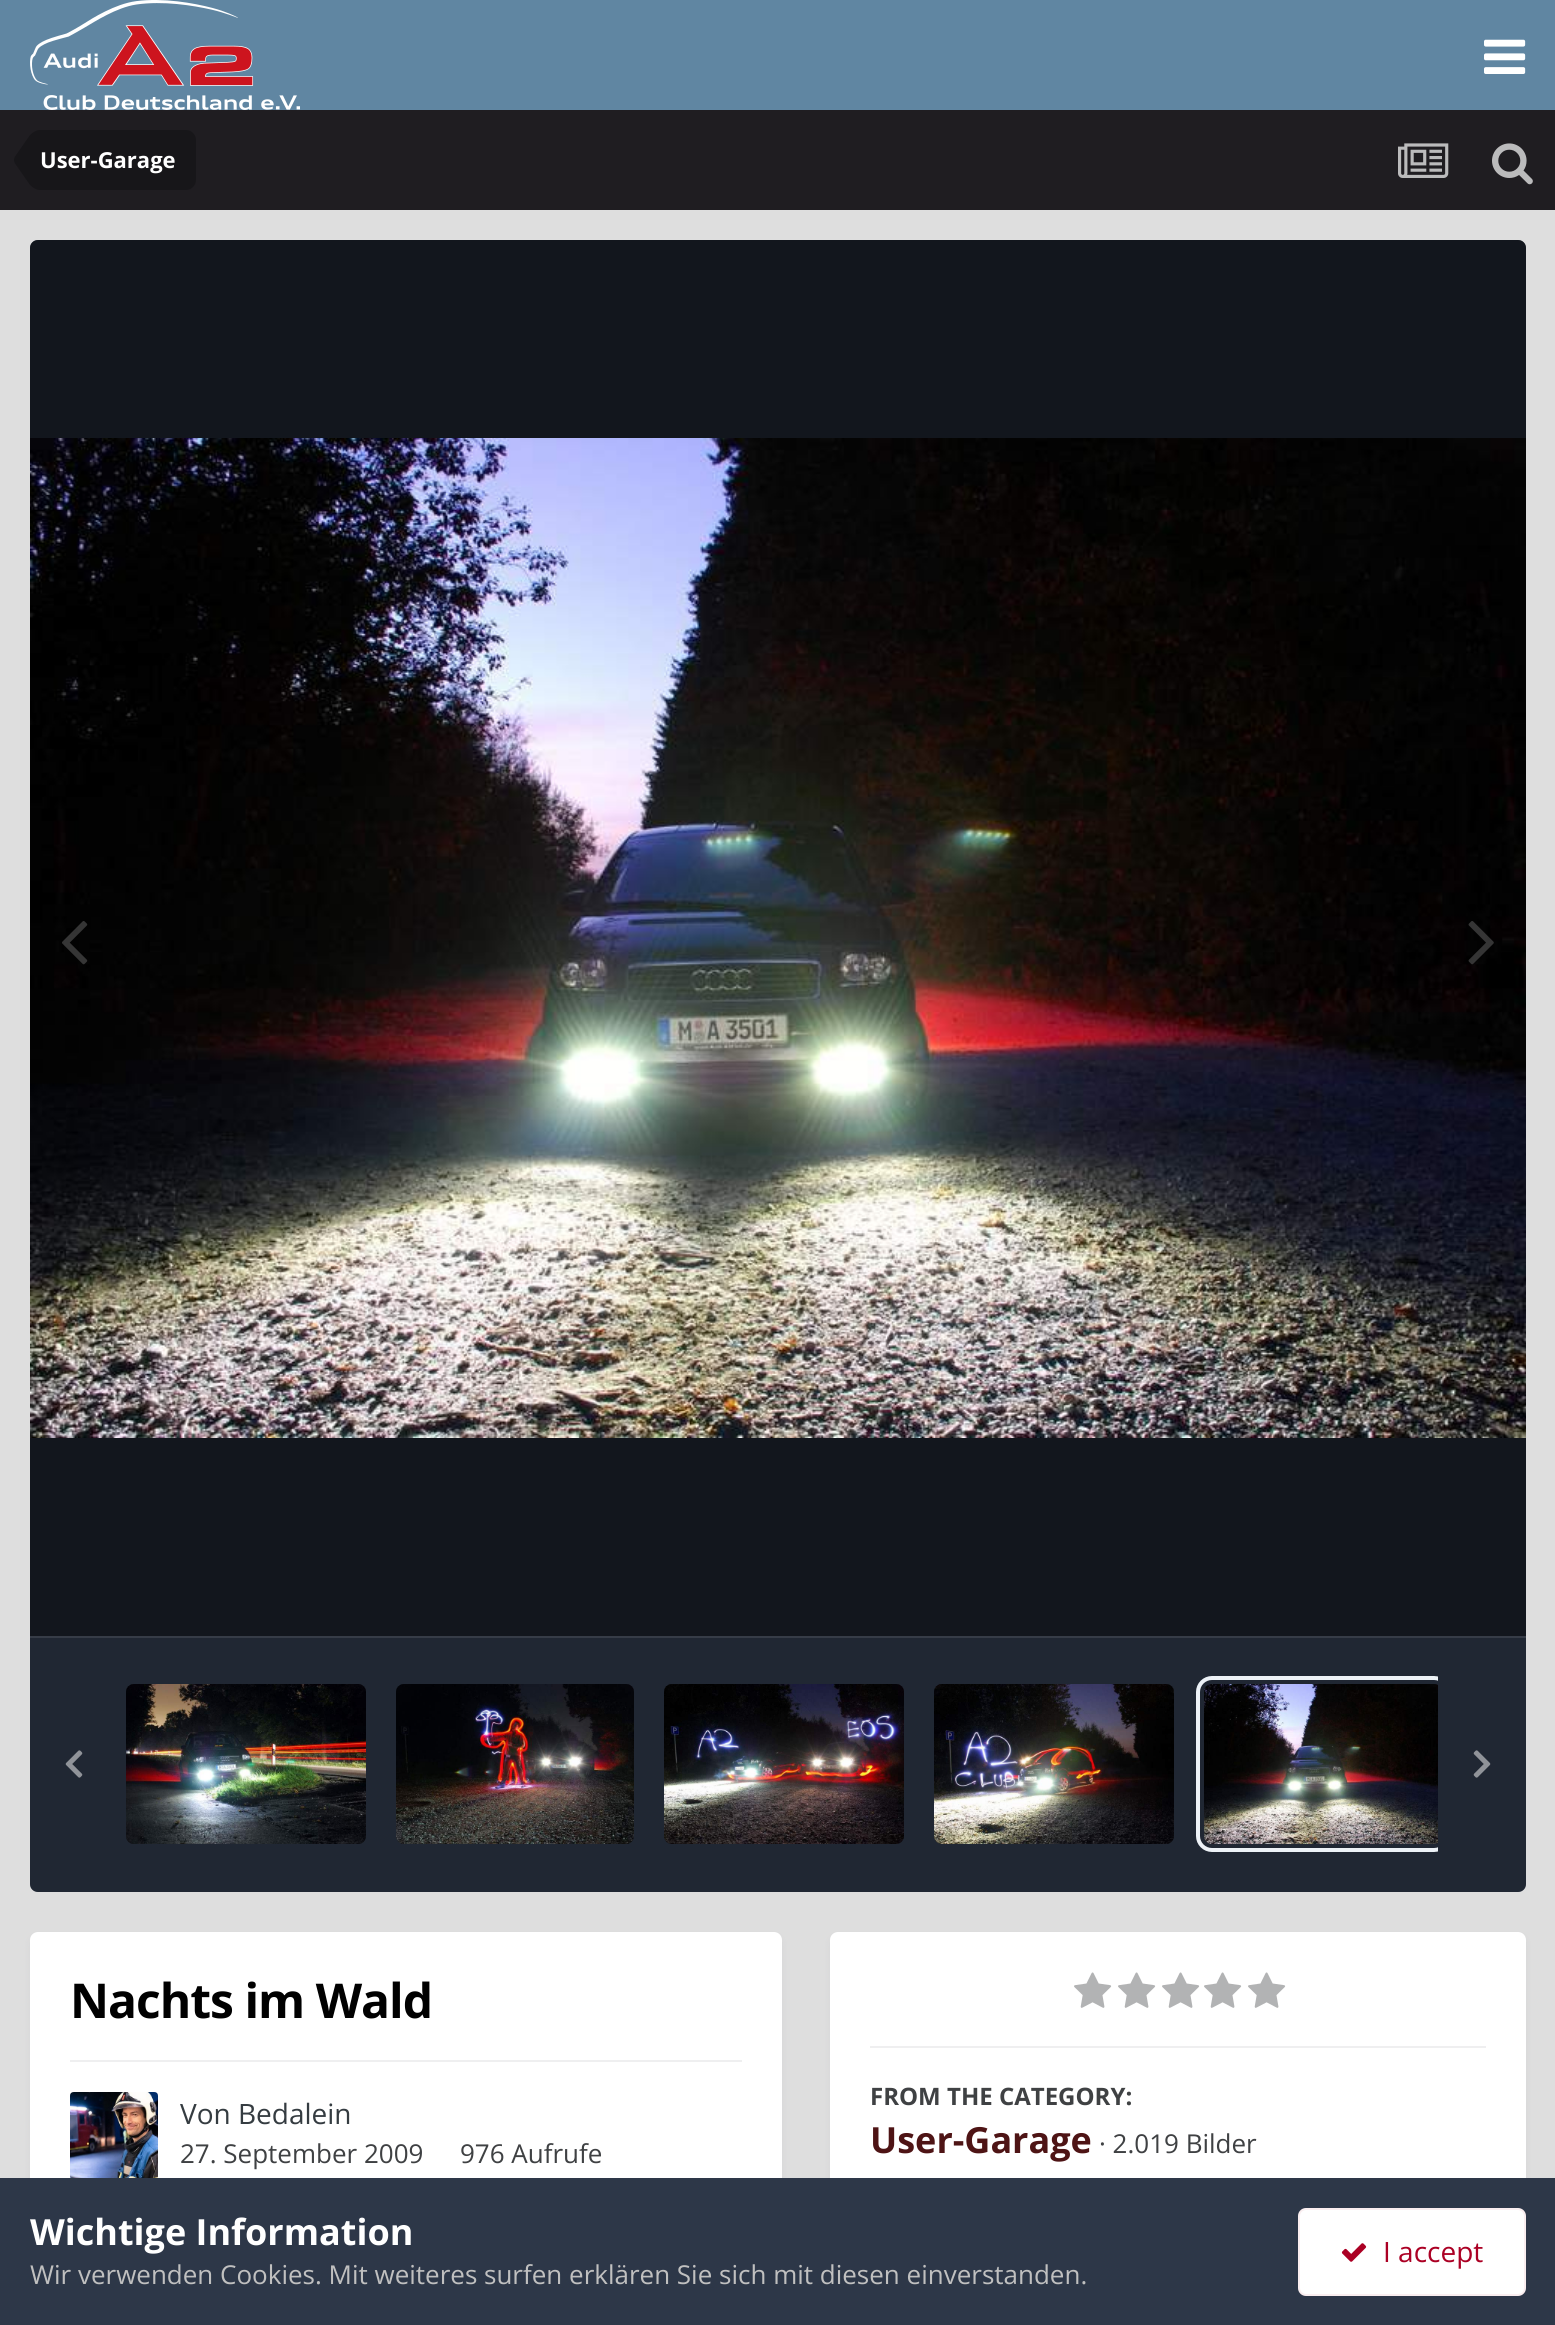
#include <cairo/cairo.h>
#include <math.h>
#include <stddef.h>

static cairo_t *cr;

static void use_color(int r, int g, int b) {
  cairo_set_source_rgb(cr, r / 255.0, g / 255.0, b / 255.0);
}

static void text(double x, double y, const char *s, const char *family, double size, int italic, int bold, int r, int g, int b) {
  cairo_select_font_face(cr, family, italic ? CAIRO_FONT_SLANT_ITALIC : CAIRO_FONT_SLANT_NORMAL,
    bold ? CAIRO_FONT_WEIGHT_BOLD : CAIRO_FONT_WEIGHT_NORMAL);
  cairo_set_font_size(cr, size);
  use_color(r, g, b);
  cairo_move_to(cr, x, y);
  cairo_show_text(cr, s);
}

static void spaced_text(double x, double y, const char *s, double letter, double word) {
  cairo_move_to(cr, x, y);
  while (*s) {
    char ch[5] = {0};
    int n = 0;
    do ch[n++] = *s++; while ((*s & 0xC0) == 0x80);
    cairo_show_text(cr, ch);
    cairo_rel_move_to(cr, letter + word * (*ch == ' '), 0);
  }
}

static void box(double x, double y, double w, double h, int r, int g, int b) {
  use_color(r, g, b);
  cairo_rectangle(cr, x, y, w, h);
  cairo_fill(cr);
}

static void round_rect(double x, double y, double w, double h, double r) {
  cairo_new_sub_path(cr);
  cairo_arc(cr, x + w - r, y + h - r, r, 0, M_PI / 2);
  cairo_arc(cr, x + r, y + h - r, r, M_PI / 2, M_PI);
  cairo_arc(cr, x + r, y + r, r, M_PI, 1.5 * M_PI);
  cairo_arc(cr, x + w - r, y + r, r, 1.5 * M_PI, 2 * M_PI);
  cairo_close_path(cr);
}

static void shadow(double x, double y, double w, double h, double r, double blur, double alpha) {
  cairo_push_group_with_content(cr, CAIRO_CONTENT_ALPHA);
  cairo_set_operator(cr, CAIRO_OPERATOR_SOURCE);
  for (int i = 15; i >= -15 && fmin(w, h) + blur * i / 3 > 0; i -= 2) {
    double e = blur * i / 6;
    cairo_set_source_rgba(cr, 0, 0, 0, alpha * erfc((i - 1) / 8.5) / 2);
    round_rect(x - e, y - e, w + 2 * e, h + 2 * e, fmax(0, fmin(r + e + blur * .6, fmin(w, h) / 2 + e)));
    cairo_fill(cr);
  }
  cairo_pattern_t *soft = cairo_pop_group(cr);
  cairo_mask(cr, soft);
  cairo_pattern_destroy(soft);
}

static void picture(const char *path, double x, double y, double w, double h) {
  cairo_surface_t *image = cairo_image_surface_create_from_png(path);
  cairo_save(cr);
  cairo_set_source_surface(cr, image, x, y);
  cairo_rectangle(cr, x, y, w, h);
  cairo_fill(cr);
  cairo_restore(cr);
  cairo_surface_destroy(image);
}

static void draw(void) {
  use_color(222, 222, 222);
  cairo_paint(cr);
  box(0, 0, 1555, 110, 96, 134, 162);
  picture("img_01.png", 30, 0, 270, 110);
  picture("img_02.png", 1484, 39, 42, 35);
  box(0, 110, 1555, 100, 31, 29, 33);
  use_color(23, 22, 25);
  cairo_new_path(cr);
  cairo_move_to(cr, 40, 130);
  cairo_line_to(cr, 186, 130);
  cairo_curve_to(cr, 191.5, 130, 196, 134.5, 196, 140);
  cairo_line_to(cr, 196, 180);
  cairo_curve_to(cr, 196, 185.5, 191.5, 190, 186, 190);
  cairo_line_to(cr, 40, 190);
  cairo_close_path(cr);
  cairo_fill(cr);
  cairo_new_path(cr);
  cairo_move_to(cr, 40, 160);
  cairo_line_to(cr, 40, 190);
  cairo_curve_to(cr, 36.5, 190, 33, 188, 30, 185);
  cairo_line_to(cr, 15, 163.5);
  cairo_curve_to(cr, 14.5, 162.5, 14, 161.5, 14, 160);
  cairo_close_path(cr);
  cairo_move_to(cr, 40, 160);
  cairo_line_to(cr, 14, 160);
  cairo_curve_to(cr, 14, 158.5, 14.5, 157.5, 15, 156.5);
  cairo_line_to(cr, 30, 135);
  cairo_curve_to(cr, 33, 132, 36.5, 130, 40, 130);
  cairo_close_path(cr);
  cairo_fill(cr);
  picture("img_03.png", 1398, 143, 51, 35);
  picture("img_04.png", 1492, 143, 41, 42);
  use_color(45, 55, 72);
  cairo_new_path(cr);
  cairo_move_to(cr, 38, 240);
  cairo_line_to(cr, 1518, 240);
  cairo_curve_to(cr, 1522.5, 240, 1526, 243.5, 1526, 248);
  cairo_line_to(cr, 1526, 1636);
  cairo_line_to(cr, 30, 1636);
  cairo_line_to(cr, 30, 248);
  cairo_curve_to(cr, 30, 243.5, 33.5, 240, 38, 240);
  cairo_close_path(cr);
  cairo_fill(cr);
  cairo_set_source_rgba(cr, 0, 0, 0, 0.6);
  cairo_new_path(cr);
  cairo_move_to(cr, 38, 240);
  cairo_line_to(cr, 1518, 240);
  cairo_curve_to(cr, 1522.5, 240, 1526, 243.5, 1526, 248);
  cairo_line_to(cr, 1526, 1636);
  cairo_line_to(cr, 30, 1636);
  cairo_line_to(cr, 30, 248);
  cairo_curve_to(cr, 30, 243.5, 33.5, 240, 38, 240);
  cairo_close_path(cr);
  cairo_fill(cr);
  picture("img_05.png", 30, 438, 1496, 1000);
  picture("img_06.png", 62, 921, 26, 44);
  picture("img_07.png", 1468, 921, 26, 44);
  use_color(45, 55, 72);
  cairo_new_path(cr);
  cairo_move_to(cr, 30, 1636);
  cairo_line_to(cr, 1526, 1636);
  cairo_line_to(cr, 1526, 1884);
  cairo_curve_to(cr, 1526, 1888.5, 1522.5, 1892, 1518, 1892);
  cairo_line_to(cr, 38, 1892);
  cairo_curve_to(cr, 33.5, 1892, 30, 1888.5, 30, 1884);
  cairo_close_path(cr);
  cairo_fill(cr);
  cairo_set_source_rgba(cr, 0, 0, 0, 0.3);
  cairo_new_path(cr);
  cairo_move_to(cr, 30, 1636);
  cairo_line_to(cr, 1526, 1636);
  cairo_line_to(cr, 1526, 1884);
  cairo_curve_to(cr, 1526, 1888.5, 1522.5, 1892, 1518, 1892);
  cairo_line_to(cr, 38, 1892);
  cairo_curve_to(cr, 33.5, 1892, 30, 1888.5, 30, 1884);
  cairo_close_path(cr);
  cairo_fill(cr);
  box(30, 1636, 1496, 2, 54, 60, 71);
  use_color(20, 20, 20);
  round_rect(126, 1684, 240, 160, 8);
  cairo_fill(cr);
  cairo_set_source_rgba(cr, 0.176, 0.216, 0.282, 0.3);
  round_rect(126, 1684, 240, 160, 8);
  cairo_fill(cr);
  picture("img_08.png", 126, 1684, 240, 160);
  use_color(20, 20, 20);
  round_rect(396, 1684, 238, 160, 8);
  cairo_fill(cr);
  cairo_set_source_rgba(cr, 0.176, 0.216, 0.282, 0.3);
  round_rect(396, 1684, 238, 160, 8);
  cairo_fill(cr);
  picture("img_09.png", 396, 1684, 238, 160);
  use_color(20, 20, 20);
  round_rect(664, 1684, 240, 160, 8);
  cairo_fill(cr);
  cairo_set_source_rgba(cr, 0.176, 0.216, 0.282, 0.3);
  round_rect(664, 1684, 240, 160, 8);
  cairo_fill(cr);
  picture("img_10.png", 664, 1684, 240, 160);
  use_color(20, 20, 20);
  round_rect(934, 1684, 240, 160, 8);
  cairo_fill(cr);
  cairo_set_source_rgba(cr, 0.176, 0.216, 0.282, 0.3);
  round_rect(934, 1684, 240, 160, 8);
  cairo_fill(cr);
  picture("img_11.png", 934, 1684, 240, 160);
  cairo_save(cr);
  cairo_rectangle(cr, 118, 1676, 1320, 176);
  cairo_clip(cr);
  use_color(20, 20, 20);
  round_rect(1204, 1684, 238, 160, 8);
  cairo_fill(cr);
  cairo_set_source_rgba(cr, 0.176, 0.216, 0.282, 0.3);
  round_rect(1204, 1684, 238, 160, 8);
  cairo_fill(cr);
  round_rect(1198, 1678, 250, 172, 14);
  use_color(237, 242, 247);
  cairo_set_line_width(cr, 4);
  cairo_stroke(cr);
  cairo_restore(cr);
  picture("img_12.png", 1204, 1684, 234, 160);
  picture("img_13.png", 65, 1750, 18, 28);
  picture("img_14.png", 1473, 1750, 18, 28);
  use_color(45, 55, 72);
  shadow(32, 1938, 748, 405, 6, 4, 0.1);
  use_color(255, 255, 255);
  round_rect(30, 1932, 752, 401, 8);
  cairo_fill(cr);
  box(70, 2060, 672, 2, 239, 239, 240);
  picture("img_15.png", 70, 2092, 88, 86);
  use_color(45, 55, 72);
  shadow(832, 1938, 692, 330, 6, 4, 0.1);
  use_color(255, 255, 255);
  round_rect(830, 1932, 696, 334, 8);
  cairo_fill(cr);
  picture("img_16.png", 1074, 1972, 38, 36);
  picture("img_16.png", 1118, 1972, 38, 36);
  picture("img_16.png", 1162, 1972, 38, 36);
  picture("img_16.png", 1204, 1972, 38, 36);
  picture("img_16.png", 1248, 1972, 38, 36);
  box(870, 2046, 616, 2, 239, 239, 240);
  box(0, 2178, 1555, 147, 45, 55, 72);
  use_color(255, 255, 255);
  round_rect(1298, 2208, 228, 88, 8);
  cairo_fill(cr);
  round_rect(1299, 2209, 226, 86, 7);
  cairo_set_source_rgba(cr, 0.671, 0, 0.141, 0.07);
  cairo_stroke(cr);
  picture("img_17.png", 1341, 2243, 26, 19);
  text(40, 168, "User-Garage", "Open Sans", 22, 0, 1, 255, 255, 255);
  cairo_set_font_size(cr, 48);
  use_color(0, 0, 0);
  spaced_text(70, 2018, "Nachts im Wald", -1, 0);
  text(180, 2124, "Von Bedalein", "Open Sans", 28, 0, 0, 53, 60, 65);
  text(180, 2163, "27. September 2009", "Open Sans", 26, 0, 0, 63, 65, 67);
  text(460, 2163, "976 Aufrufe", "Open Sans", 26, 0, 0, 63, 65, 67);
  text(870, 2105, "FROM THE CATEGORY:", "Open Sans", 24, 0, 1, 63, 65, 67);
  text(870, 2153, "User-Garage", "Open Sans", 36, 0, 1, 78, 20, 21);
  text(1099, 2153, "· 2.019 Bilder", "Open Sans", 26, 0, 0, 63, 65, 67);
  text(30, 2245, "Wichtige Information", "Open Sans", 36, 0, 1, 255, 255, 255);
  text(30, 2284, "Wir verwenden Cookies. Mit weiteres surfen erklären Sie sich mit diesen einverstanden.", "Open Sans", 26, 0, 0, 192, 192, 192);
  text(1383, 2262, "I accept", "Open Sans", 28, 0, 0, 171, 0, 36);
}

int main(void) {
  cairo_surface_t *surface = cairo_image_surface_create(CAIRO_FORMAT_RGB24, 1555, 2325);
  cr = cairo_create(surface);
  cairo_font_options_t *options = cairo_font_options_create();
  cairo_font_options_set_hint_metrics(options, CAIRO_HINT_METRICS_OFF);
  cairo_font_options_set_hint_style(options, CAIRO_HINT_STYLE_NONE);
  cairo_set_font_options(cr, options);
  cairo_set_miter_limit(cr, 4);
  draw();
  cairo_surface_write_to_png(surface, "out.png");
  cairo_font_options_destroy(options);
  cairo_destroy(cr);
  cairo_surface_destroy(surface);
  return 0;
}
